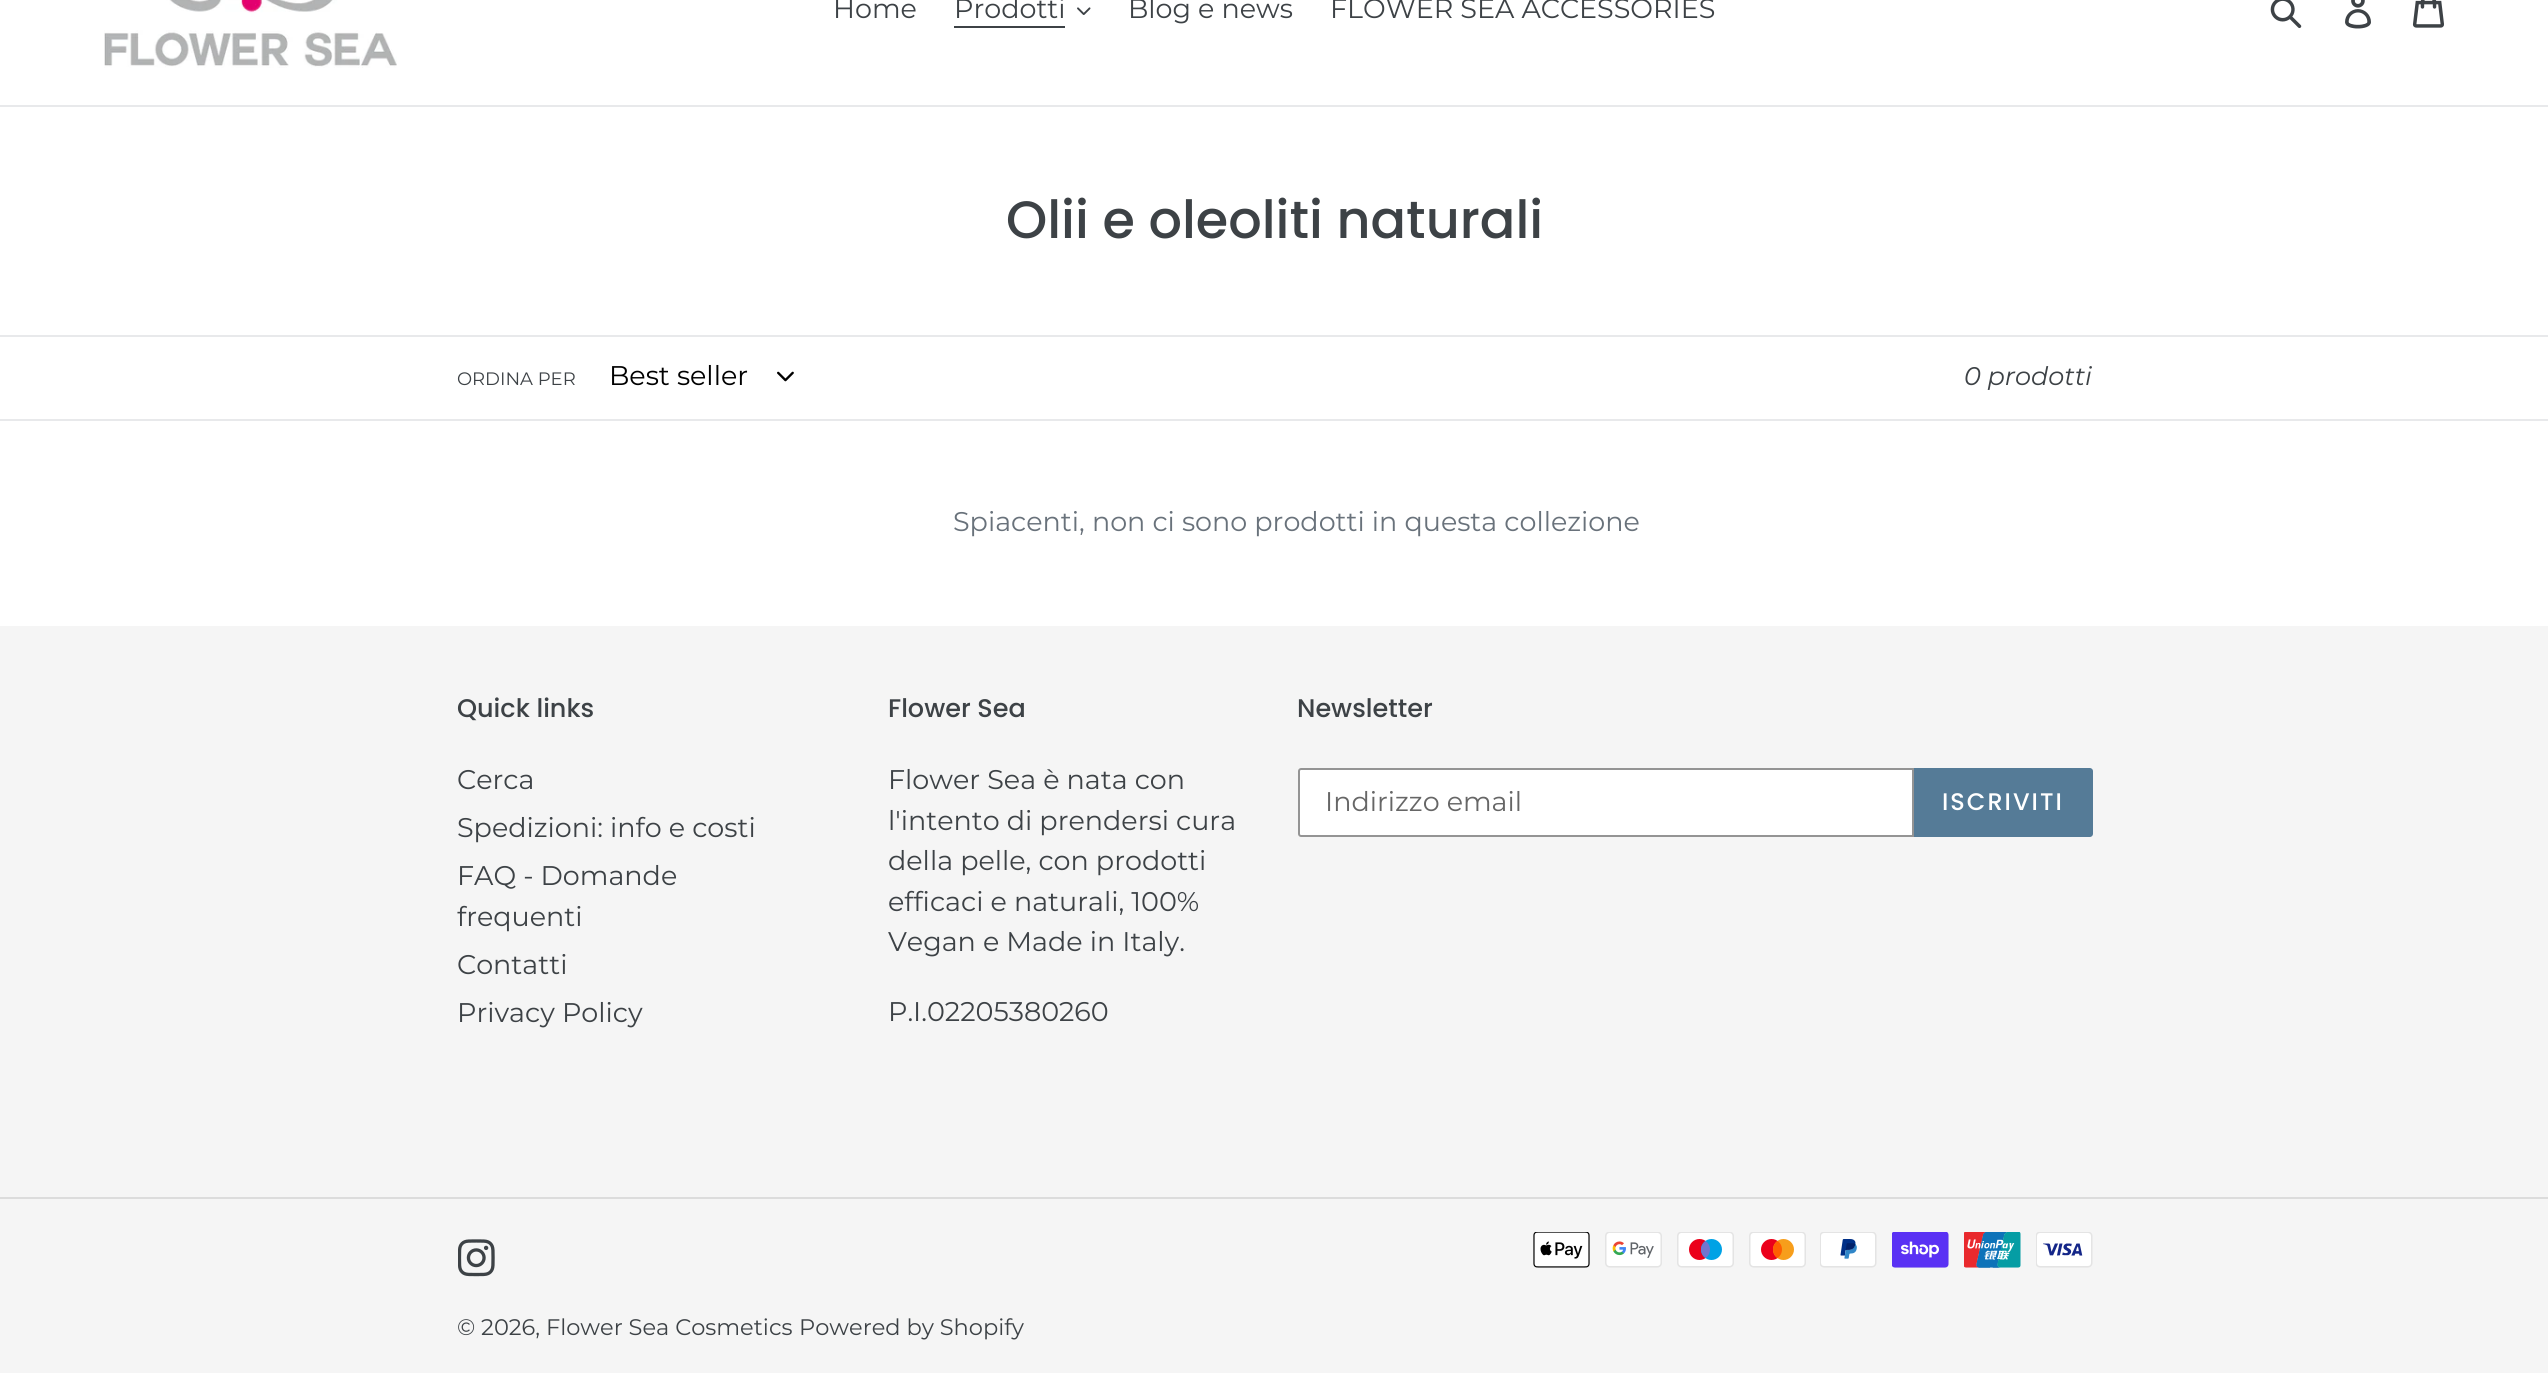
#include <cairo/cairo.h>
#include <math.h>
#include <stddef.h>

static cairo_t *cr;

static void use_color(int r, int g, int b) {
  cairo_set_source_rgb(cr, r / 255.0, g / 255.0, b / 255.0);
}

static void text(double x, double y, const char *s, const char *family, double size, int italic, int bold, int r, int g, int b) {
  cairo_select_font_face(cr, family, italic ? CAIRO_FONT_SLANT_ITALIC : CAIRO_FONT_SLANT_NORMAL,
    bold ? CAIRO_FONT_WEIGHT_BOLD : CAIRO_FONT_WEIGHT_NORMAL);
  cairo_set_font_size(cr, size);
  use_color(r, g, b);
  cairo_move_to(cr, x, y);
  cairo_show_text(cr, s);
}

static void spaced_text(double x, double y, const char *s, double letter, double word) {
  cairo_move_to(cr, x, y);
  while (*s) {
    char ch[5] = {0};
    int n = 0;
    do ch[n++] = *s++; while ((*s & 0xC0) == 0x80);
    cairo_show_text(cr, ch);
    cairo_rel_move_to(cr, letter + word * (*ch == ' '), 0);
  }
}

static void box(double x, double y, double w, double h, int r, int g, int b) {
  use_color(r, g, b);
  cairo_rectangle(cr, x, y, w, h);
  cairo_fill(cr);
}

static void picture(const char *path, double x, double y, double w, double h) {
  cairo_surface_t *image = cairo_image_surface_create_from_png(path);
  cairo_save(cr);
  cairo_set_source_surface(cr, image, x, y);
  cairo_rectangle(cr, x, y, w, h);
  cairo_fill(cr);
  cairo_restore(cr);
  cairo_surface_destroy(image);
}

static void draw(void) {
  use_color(255, 255, 255);
  cairo_paint(cr);
  box(0, 105, 2548, 2, 232, 233, 235);
  picture("img_01.png", 104, 0, 293, 68);
  box(954, 26, 111, 2, 61, 66, 70);
  picture("img_02.png", 1077, 7, 14, 8);
  picture("img_03.png", 2270, 0, 32, 29);
  picture("img_04.png", 2345, 0, 26, 29);
  picture("img_05.png", 2412, 0, 32, 28);
  box(0, 335, 2548, 2, 232, 233, 235);
  box(0, 419, 2548, 2, 232, 233, 235);
  picture("img_06.png", 777, 371, 17, 11);
  box(0, 626, 2548, 747, 245, 245, 245);
  use_color(255, 255, 255);
  cairo_new_path(cr);
  cairo_move_to(cr, 1301, 769);
  cairo_line_to(cr, 1913, 769);
  cairo_line_to(cr, 1913, 836);
  cairo_line_to(cr, 1301, 836);
  cairo_curve_to(cr, 1300, 836, 1299, 835, 1299, 834);
  cairo_line_to(cr, 1299, 771);
  cairo_curve_to(cr, 1299, 770, 1300, 769, 1301, 769);
  cairo_close_path(cr);
  cairo_fill_preserve(cr);
  use_color(148, 148, 148);
  cairo_stroke(cr);
  use_color(85, 123, 151);
  cairo_new_path(cr);
  cairo_move_to(cr, 1914, 768);
  cairo_line_to(cr, 2090, 768);
  cairo_curve_to(cr, 2091.5, 768, 2093, 769.5, 2093, 771);
  cairo_line_to(cr, 2093, 834);
  cairo_curve_to(cr, 2093, 835.5, 2091.5, 837, 2090, 837);
  cairo_line_to(cr, 1914, 837);
  cairo_close_path(cr);
  cairo_fill(cr);
  box(0, 1197, 2548, 2, 220, 220, 220);
  picture("img_07.png", 458, 1239, 37, 38);
  picture("img_08.png", 1533, 1232, 57, 36);
  picture("img_09.png", 1605, 1232, 57, 36);
  picture("img_10.png", 1677, 1232, 57, 36);
  picture("img_11.png", 1749, 1232, 57, 36);
  picture("img_12.png", 1820, 1232, 57, 36);
  picture("img_13.png", 1892, 1232, 57, 36);
  picture("img_14.png", 1964, 1232, 57, 36);
  picture("img_15.png", 2036, 1232, 57, 36);
  text(833, 18, "Home", "Montserrat", 27, 0, 0, 61, 66, 70);
  text(954, 18, "Prodotti", "Montserrat", 27, 0, 0, 61, 66, 70);
  text(1128, 18, "Blog e news", "Montserrat", 27, 0, 0, 61, 66, 70);
  text(1330, 18, "FLOWER SEA ACCESSORIES", "Montserrat", 27, 0, 0, 61, 66, 70);
  text(1006, 238, "Olii e oleoliti naturali", "Poppins Medium", 52.5, 0, 0, 61, 66, 70);
  text(457, 385, "ORDINA PER", "Montserrat", 18, 0, 0, 61, 66, 70);
  text(609, 385, "Best seller", "Montserrat", 27, 0, 0, 0, 0, 0);
  text(1964, 385, "0 prodotti", "Montserrat", 25.5, 1, 0, 61, 66, 70);
  text(953, 531, "Spiacenti, non ci sono prodotti in questa collezione", "Montserrat", 27, 0, 0, 105, 114, 123);
  text(457, 717, "Quick links", "Poppins Medium", 25.5, 0, 0, 61, 66, 70);
  text(457, 789, "Cerca", "Montserrat", 27, 0, 0, 61, 66, 70);
  text(457, 837, "Spedizioni: info e costi", "Montserrat", 27, 0, 0, 61, 66, 70);
  text(457, 885, "FAQ - Domande", "Montserrat", 27, 0, 0, 61, 66, 70);
  text(457, 926, "frequenti", "Montserrat", 27, 0, 0, 61, 66, 70);
  text(457, 974, "Contatti", "Montserrat", 27, 0, 0, 61, 66, 70);
  text(457, 1022, "Privacy Policy", "Montserrat", 27, 0, 0, 61, 66, 70);
  text(888, 717, "Flower Sea", "Poppins Medium", 25.5, 0, 0, 61, 66, 70);
  text(888, 789, "Flower Sea è nata con", "Montserrat", 27, 0, 0, 61, 66, 70);
  text(888, 830, "l'intento di prendersi cura", "Montserrat", 27, 0, 0, 61, 66, 70);
  text(888, 870, "della pelle, con prodotti", "Montserrat", 27, 0, 0, 61, 66, 70);
  text(888, 911, "efficaci e naturali, 100%", "Montserrat", 27, 0, 0, 61, 66, 70);
  text(888, 951, "Vegan e Made in Italy.", "Montserrat", 27, 0, 0, 61, 66, 70);
  text(888, 1021, "P.I.02205380260", "Montserrat", 27, 0, 0, 61, 66, 70);
  text(1297, 717, "Newsletter", "Poppins Medium", 25.5, 0, 0, 61, 66, 70);
  text(1325, 811, "Indirizzo email", "Montserrat", 27, 0, 0, 102, 102, 102);
  cairo_select_font_face(cr, "Poppins Medium", CAIRO_FONT_SLANT_NORMAL, CAIRO_FONT_WEIGHT_NORMAL);
  cairo_set_font_size(cr, 24);
  use_color(255, 255, 255);
  spaced_text(1942, 810, "ISCRIVITI", 2, 0);
  text(457, 1335, "© 2026, Flower Sea Cosmetics", "Montserrat", 22.5, 0, 0, 61, 66, 70);
  text(799, 1335, "Powered by Shopify", "Montserrat", 22.5, 0, 0, 61, 66, 70);
}

int main(void) {
  cairo_surface_t *surface = cairo_image_surface_create(CAIRO_FORMAT_RGB24, 2548, 1373);
  cr = cairo_create(surface);
  cairo_font_options_t *options = cairo_font_options_create();
  cairo_font_options_set_hint_metrics(options, CAIRO_HINT_METRICS_OFF);
  cairo_font_options_set_hint_style(options, CAIRO_HINT_STYLE_NONE);
  cairo_set_font_options(cr, options);
  cairo_set_miter_limit(cr, 4);
  draw();
  cairo_surface_write_to_png(surface, "out.png");
  cairo_font_options_destroy(options);
  cairo_destroy(cr);
  cairo_surface_destroy(surface);
  return 0;
}
